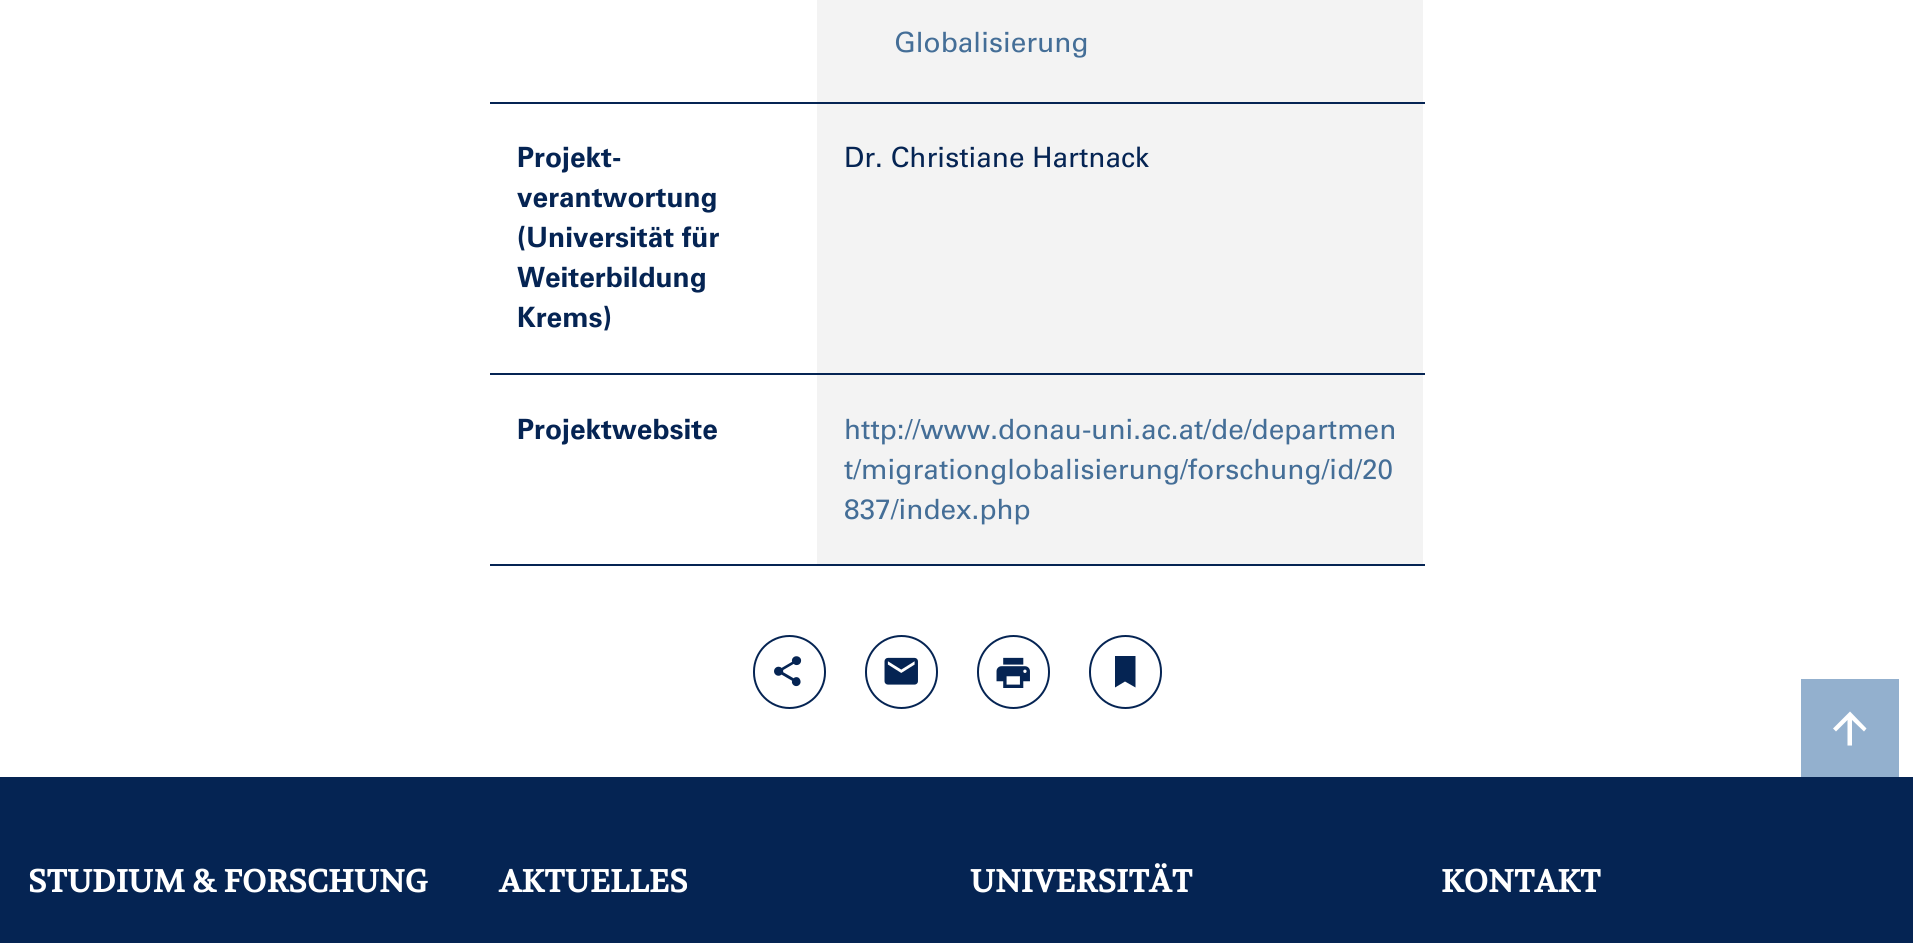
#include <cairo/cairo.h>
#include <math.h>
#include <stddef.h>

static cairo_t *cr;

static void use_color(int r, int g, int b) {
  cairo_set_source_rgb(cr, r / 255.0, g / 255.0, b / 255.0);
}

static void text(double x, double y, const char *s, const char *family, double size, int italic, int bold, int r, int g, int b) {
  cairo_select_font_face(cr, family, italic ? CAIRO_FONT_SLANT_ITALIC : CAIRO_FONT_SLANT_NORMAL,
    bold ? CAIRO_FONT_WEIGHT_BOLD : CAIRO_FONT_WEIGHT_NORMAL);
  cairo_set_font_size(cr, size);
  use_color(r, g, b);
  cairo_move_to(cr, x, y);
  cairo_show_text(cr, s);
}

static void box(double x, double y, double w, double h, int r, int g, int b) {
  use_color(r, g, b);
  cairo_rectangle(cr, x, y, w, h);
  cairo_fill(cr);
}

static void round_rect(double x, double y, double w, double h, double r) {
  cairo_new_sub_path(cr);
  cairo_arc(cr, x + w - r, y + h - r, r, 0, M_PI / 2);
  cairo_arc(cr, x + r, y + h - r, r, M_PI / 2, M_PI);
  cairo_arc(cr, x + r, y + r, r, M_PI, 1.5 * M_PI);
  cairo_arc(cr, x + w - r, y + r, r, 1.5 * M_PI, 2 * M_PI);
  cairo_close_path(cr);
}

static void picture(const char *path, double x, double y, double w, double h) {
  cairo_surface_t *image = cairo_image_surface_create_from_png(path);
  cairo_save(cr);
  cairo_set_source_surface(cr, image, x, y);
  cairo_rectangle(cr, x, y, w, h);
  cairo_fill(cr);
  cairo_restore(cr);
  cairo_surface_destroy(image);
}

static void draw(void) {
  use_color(255, 255, 255);
  cairo_paint(cr);
  box(490, 102, 935, 2, 5, 36, 83);
  box(817, 0, 606, 102, 243, 243, 243);
  box(490, 373, 935, 2, 5, 36, 83);
  box(817, 104, 606, 269, 243, 243, 243);
  box(490, 564, 935, 2, 5, 36, 83);
  box(817, 375, 606, 189, 243, 243, 243);
  round_rect(754, 636, 71, 72, 35.5);
  use_color(5, 36, 83);
  cairo_stroke(cr);
  picture("img_01.png", 774, 656, 28, 31);
  round_rect(866, 636, 71, 72, 35.5);
  cairo_stroke(cr);
  picture("img_02.png", 884, 657, 34, 28);
  round_rect(978, 636, 71, 72, 35.5);
  cairo_stroke(cr);
  picture("img_03.png", 996, 657, 34, 31);
  round_rect(1090, 636, 71, 72, 35.5);
  cairo_stroke(cr);
  cairo_new_path(cr);
  cairo_move_to(cr, 1115, 656);
  cairo_line_to(cr, 1115, 687.5);
  cairo_line_to(cr, 1125, 681.5);
  cairo_line_to(cr, 1135.5, 687.5);
  cairo_line_to(cr, 1135.5, 656);
  cairo_close_path(cr);
  cairo_fill(cr);
  box(1801, 679, 98, 98, 147, 176, 206);
  use_color(255, 255, 255);
  cairo_new_path(cr);
  cairo_move_to(cr, 1848, 745.5);
  cairo_line_to(cr, 1852, 745.5);
  cairo_line_to(cr, 1852, 720);
  cairo_line_to(cr, 1864, 731.5);
  cairo_line_to(cr, 1866.5, 728.5);
  cairo_line_to(cr, 1850, 711.5);
  cairo_line_to(cr, 1833, 728.5);
  cairo_line_to(cr, 1836, 731.5);
  cairo_line_to(cr, 1847.5, 720);
  cairo_line_to(cr, 1847.5, 745.5);
  cairo_close_path(cr);
  cairo_fill(cr);
  box(0, 777, 1913, 166, 5, 36, 83);
  text(894, 52, "Globalisierung", "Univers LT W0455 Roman", 28, 0, 0, 68, 110, 151);
  text(517, 167, "Projekt-", "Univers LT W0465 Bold", 28, 0, 1, 5, 36, 83);
  text(517, 207, "verantwortung", "Univers LT W0465 Bold", 28, 0, 1, 5, 36, 83);
  text(517, 247, "(Universität für", "Univers LT W0465 Bold", 28, 0, 1, 5, 36, 83);
  text(517, 287, "Weiterbildung", "Univers LT W0465 Bold", 28, 0, 1, 5, 36, 83);
  text(517, 327, "Krems)", "Univers LT W0465 Bold", 28, 0, 1, 5, 36, 83);
  text(844, 167, "Dr. Christiane Hartnack", "Univers LT W0455 Roman", 28, 0, 0, 5, 36, 83);
  text(517, 439, "Projektwebsite", "Univers LT W0465 Bold", 28, 0, 1, 5, 36, 83);
  text(844, 439, "http://www.donau-uni.ac.at/de/departmen", "Univers LT W0455 Roman", 28, 0, 0, 68, 110, 151);
  text(844, 479, "t/migrationglobalisierung/forschung/id/20", "Univers LT W0455 Roman", 28, 0, 0, 68, 110, 151);
  text(844, 519, "837/index.php", "Univers LT W0455 Roman", 28, 0, 0, 68, 110, 151);
  text(28, 892, "STUDIUM & FORSCHUNG", "Volkhov", 31.5, 0, 1, 255, 255, 255);
  text(499, 892, "AKTUELLES", "Volkhov", 31.5, 0, 1, 255, 255, 255);
  text(970, 892, "UNIVERSITÄT", "Volkhov", 31.5, 0, 1, 255, 255, 255);
  text(1441, 892, "KONTAKT", "Volkhov", 31.5, 0, 1, 255, 255, 255);
}

int main(void) {
  cairo_surface_t *surface = cairo_image_surface_create(CAIRO_FORMAT_RGB24, 1913, 943);
  cr = cairo_create(surface);
  cairo_font_options_t *options = cairo_font_options_create();
  cairo_font_options_set_hint_metrics(options, CAIRO_HINT_METRICS_OFF);
  cairo_font_options_set_hint_style(options, CAIRO_HINT_STYLE_NONE);
  cairo_set_font_options(cr, options);
  cairo_set_miter_limit(cr, 4);
  draw();
  cairo_surface_write_to_png(surface, "out.png");
  cairo_font_options_destroy(options);
  cairo_destroy(cr);
  cairo_surface_destroy(surface);
  return 0;
}
